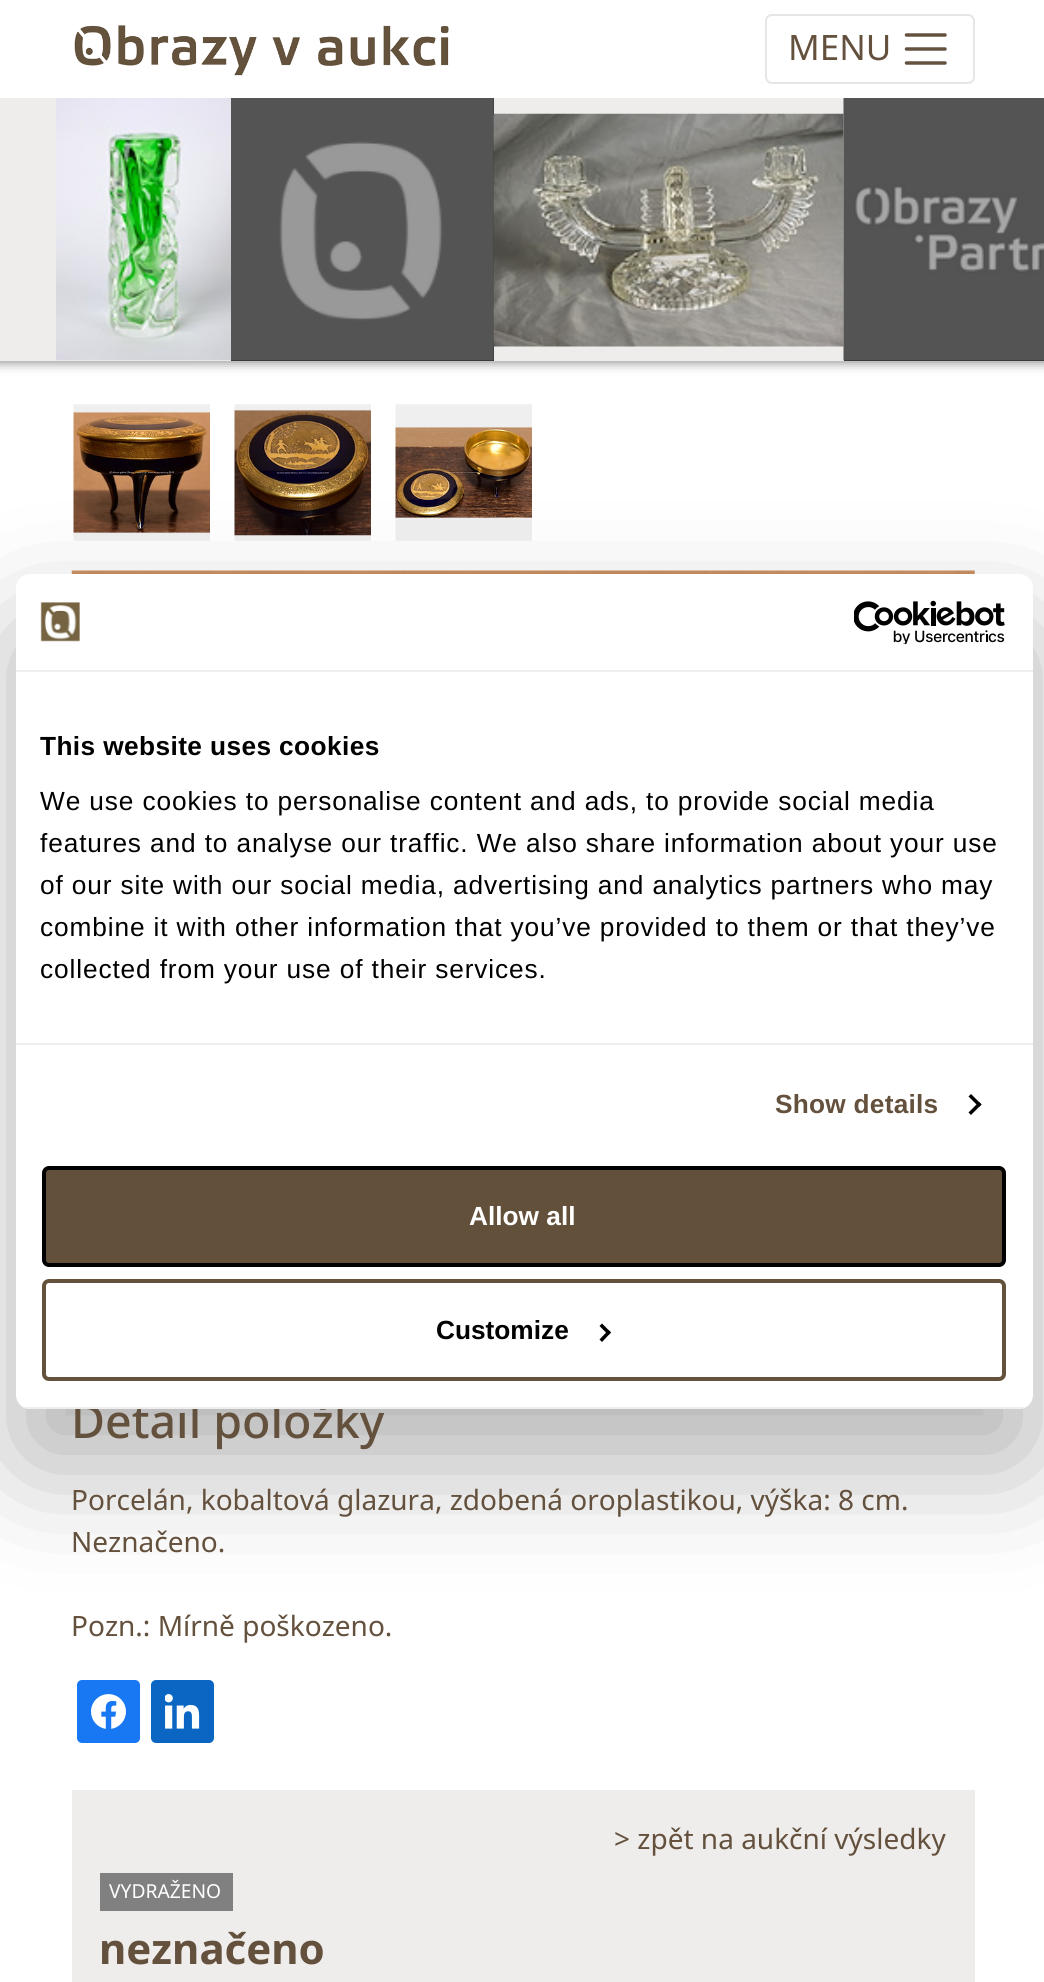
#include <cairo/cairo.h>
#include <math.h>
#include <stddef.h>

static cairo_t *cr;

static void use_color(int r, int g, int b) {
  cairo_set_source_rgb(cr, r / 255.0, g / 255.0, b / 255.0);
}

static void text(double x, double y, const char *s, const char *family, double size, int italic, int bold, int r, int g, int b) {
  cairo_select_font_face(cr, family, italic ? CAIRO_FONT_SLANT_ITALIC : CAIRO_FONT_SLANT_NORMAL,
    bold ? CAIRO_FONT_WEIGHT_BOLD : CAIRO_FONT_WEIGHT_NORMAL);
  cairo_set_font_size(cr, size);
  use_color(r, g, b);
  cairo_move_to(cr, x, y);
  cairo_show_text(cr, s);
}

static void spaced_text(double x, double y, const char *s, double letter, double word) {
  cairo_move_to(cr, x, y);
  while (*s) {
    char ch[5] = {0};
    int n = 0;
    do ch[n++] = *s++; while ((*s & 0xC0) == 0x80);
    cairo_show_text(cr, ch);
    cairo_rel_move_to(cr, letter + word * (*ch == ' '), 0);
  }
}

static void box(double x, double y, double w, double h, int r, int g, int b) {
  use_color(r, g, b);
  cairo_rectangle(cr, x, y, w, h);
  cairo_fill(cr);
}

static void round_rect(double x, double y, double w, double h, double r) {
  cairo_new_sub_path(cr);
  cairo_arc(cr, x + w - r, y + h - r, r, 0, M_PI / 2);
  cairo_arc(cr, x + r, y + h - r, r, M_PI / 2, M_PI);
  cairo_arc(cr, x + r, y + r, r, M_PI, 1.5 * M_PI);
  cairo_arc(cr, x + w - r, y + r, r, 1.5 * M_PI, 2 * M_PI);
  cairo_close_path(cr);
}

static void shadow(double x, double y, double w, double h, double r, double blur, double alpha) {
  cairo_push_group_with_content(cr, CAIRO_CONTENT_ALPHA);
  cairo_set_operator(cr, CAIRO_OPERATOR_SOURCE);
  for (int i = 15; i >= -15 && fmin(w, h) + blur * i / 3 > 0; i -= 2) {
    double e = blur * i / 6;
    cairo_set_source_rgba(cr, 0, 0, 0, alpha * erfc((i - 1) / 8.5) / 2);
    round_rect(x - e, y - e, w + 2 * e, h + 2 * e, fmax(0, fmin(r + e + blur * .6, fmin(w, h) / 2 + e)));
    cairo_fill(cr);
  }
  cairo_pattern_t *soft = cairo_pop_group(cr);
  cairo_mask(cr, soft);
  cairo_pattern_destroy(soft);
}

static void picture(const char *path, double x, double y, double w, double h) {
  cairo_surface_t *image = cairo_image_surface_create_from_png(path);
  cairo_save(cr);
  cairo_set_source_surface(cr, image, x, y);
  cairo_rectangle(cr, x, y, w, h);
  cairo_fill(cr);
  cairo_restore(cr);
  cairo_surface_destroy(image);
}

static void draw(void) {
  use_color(255, 255, 255);
  cairo_paint(cr);
  use_color(128, 128, 128);
  shadow(-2, 96, 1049, 266, 0, 6, 1);
  box(0, 84, 1044, 14, 255, 255, 255);
  picture("img_01.png", 74, 25, 375, 51);
  round_rect(766, 15, 208, 68, 6);
  use_color(230, 230, 230);
  cairo_stroke(cr);
  cairo_new_path(cr);
  cairo_move_to(cr, 906.5, 35);
  cairo_line_to(cr, 945, 35);
  cairo_move_to(cr, 906.5, 49);
  cairo_line_to(cr, 945, 49);
  cairo_move_to(cr, 906.5, 63);
  cairo_line_to(cr, 945, 63);
  use_color(100, 81, 61);
  cairo_set_line_width(cr, 3.5);
  cairo_set_line_cap(cr, CAIRO_LINE_CAP_ROUND);
  cairo_stroke(cr);
  box(0, 98, 844, 263, 239, 237, 235);
  picture("img_02.png", 56, 98, 175, 263);
  box(231, 98, 263, 263, 51, 51, 51);
  picture("img_03.png", 231, 98, 263, 263);
  picture("img_04.png", 493, 113, 351, 234);
  box(844, 360, 200, 1, 51, 51, 51);
  picture("img_05.png", 843, 98, 201, 263);
  picture("img_08.png", 73, 404, 137, 137);
  picture("img_09.png", 234, 404, 137, 137);
  picture("img_10.png", 395, 404, 137, 137);
  picture("img_11.png", 71, 570, 904, 4);
  use_color(0, 0, 0);
  shadow(16, 630, 1017, 835, 14, 59.5, 0.3);
  use_color(24, 119, 242);
  round_rect(77, 1680, 63, 63, 5);
  cairo_fill(cr);
  picture("img_12.png", 91, 1694, 35, 35);
  use_color(10, 102, 194);
  round_rect(151, 1680, 63, 63, 5);
  cairo_fill(cr);
  picture("img_13.png", 165, 1694, 35, 35);
  box(72, 1790, 903, 192, 239, 237, 235);
  box(100, 1873, 133, 38, 128, 128, 128);
  text(788, 60, "MENU", "Noto Sans", 35, 0, 0, 100, 81, 61);
  text(71, 1438, "Detail položky", "Noto Sans Medium", 46.5, 0, 0, 100, 81, 61);
  use_color(255, 255, 255);
  round_rect(16, 574, 1017, 835, 14);
  cairo_fill(cr);
  round_rect(44, 1281, 960, 98, 5);
  use_color(100, 82, 61);
  cairo_set_line_width(cr, 4);
  cairo_set_line_cap(cr, CAIRO_LINE_CAP_BUTT);
  cairo_stroke(cr);
  use_color(0, 0, 0);
  cairo_new_path(cr);
  cairo_move_to(cr, 602, 1323.5);
  cairo_line_to(cr, 611, 1332.5);
  cairo_line_to(cr, 608.5, 1335);
  cairo_line_to(cr, 599.5, 1326);
  cairo_close_path(cr);
  cairo_fill(cr);
  cairo_new_path(cr);
  cairo_move_to(cr, 608.5, 1330);
  cairo_line_to(cr, 611, 1332.5);
  cairo_line_to(cr, 602, 1342);
  cairo_line_to(cr, 599.5, 1339.5);
  cairo_close_path(cr);
  cairo_fill(cr);
  text(436, 1339, "Customize", "Liberation Sans", 26.25, 0, 1, 0, 0, 0);
  use_color(99, 80, 59);
  round_rect(44, 1168, 960, 97, 5);
  cairo_fill_preserve(cr);
  use_color(0, 0, 0);
  cairo_stroke(cr);
  text(469, 1225, "Allow all", "Liberation Sans", 26.25, 0, 1, 255, 255, 255);
  cairo_save(cr);
  round_rect(16, 574, 1017, 835, 14);
  cairo_clip(cr);
  box(16, 1407, 1017, 2, 238, 238, 238);
  cairo_restore(cr);
  use_color(0, 0, 0);
  cairo_new_path(cr);
  cairo_move_to(cr, 971, 1094);
  cairo_line_to(cr, 981.5, 1104.5);
  cairo_line_to(cr, 979, 1107);
  cairo_line_to(cr, 968.5, 1096.5);
  cairo_close_path(cr);
  cairo_fill(cr);
  cairo_new_path(cr);
  cairo_move_to(cr, 979, 1102);
  cairo_line_to(cr, 981.5, 1104.5);
  cairo_line_to(cr, 971, 1115);
  cairo_line_to(cr, 968.5, 1112.5);
  cairo_close_path(cr);
  cairo_fill(cr);
  cairo_select_font_face(cr, "Liberation Sans", CAIRO_FONT_SLANT_NORMAL, CAIRO_FONT_WEIGHT_NORMAL);
  spaced_text(40, 978, "collected from your use of their services.", 0.88, 0);
  spaced_text(40, 936, "combine it with other information that you’ve provided to them or that they’ve", 0.88, 0);
  spaced_text(40, 894, "of our site with our social media, advertising and analytics partners who may", 0.88, 0);
  spaced_text(40, 852, "features and to analyse our traffic. We also share information about your use", 0.88, 0);
  spaced_text(40, 810, "We use cookies to personalise content and ads, to provide social media", 0.88, 0);
  cairo_select_font_face(cr, "Liberation Sans", CAIRO_FONT_SLANT_NORMAL, CAIRO_FONT_WEIGHT_BOLD);
  spaced_text(40, 755, "This website uses cookies", 0.4, 0);
  box(16, 1043, 1017, 2, 238, 238, 238);
  use_color(100, 81, 61);
  spaced_text(775, 1113, "Show details", 0.25, 0);
  picture("img_07.png", 854, 600, 151, 44);
  picture("img_06.png", 40, 602, 40, 40);
  box(16, 670, 1017, 2, 238, 238, 238);
  text(71, 1510, "Porcelán, kobaltová glazura, zdobená oroplastikou, výška: 8 cm.", "Noto Sans", 28, 0, 0, 100, 81, 61);
  text(71, 1552, "Neznačeno.", "Noto Sans", 28, 0, 0, 100, 81, 61);
  text(71, 1636, "Pozn.: Mírně poškozeno.", "Noto Sans", 28, 0, 0, 100, 81, 61);
  text(614, 1849, "> zpět na aukční výsledky", "Noto Sans", 28, 0, 0, 100, 81, 61);
  text(109, 1898, "VYDRAŽENO", "Noto Sans", 19.25, 0, 0, 255, 255, 255);
  text(99, 1964, "neznačeno", "Noto Sans", 42, 0, 1, 100, 81, 61);
}

int main(void) {
  cairo_surface_t *surface = cairo_image_surface_create(CAIRO_FORMAT_RGB24, 1044, 1982);
  cr = cairo_create(surface);
  cairo_font_options_t *options = cairo_font_options_create();
  cairo_font_options_set_hint_metrics(options, CAIRO_HINT_METRICS_OFF);
  cairo_font_options_set_hint_style(options, CAIRO_HINT_STYLE_NONE);
  cairo_set_font_options(cr, options);
  cairo_set_miter_limit(cr, 4);
  draw();
  cairo_surface_write_to_png(surface, "out.png");
  cairo_font_options_destroy(options);
  cairo_destroy(cr);
  cairo_surface_destroy(surface);
  return 0;
}
